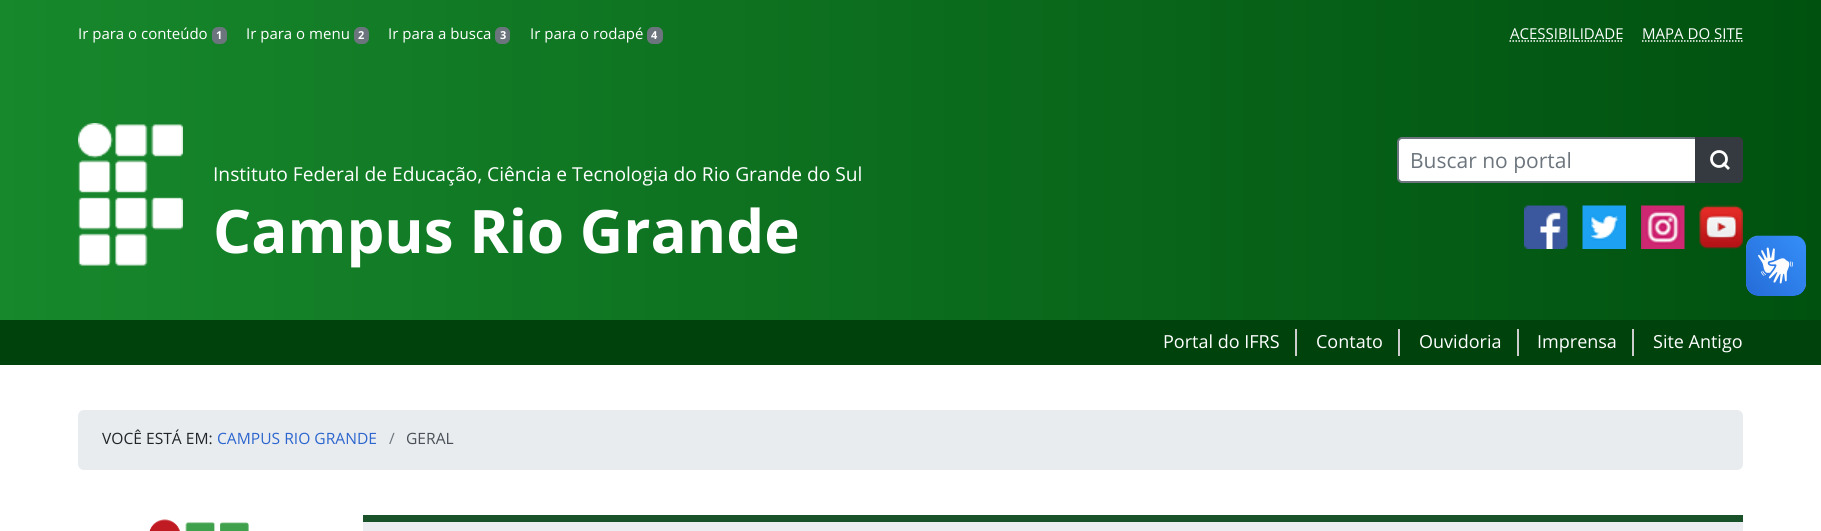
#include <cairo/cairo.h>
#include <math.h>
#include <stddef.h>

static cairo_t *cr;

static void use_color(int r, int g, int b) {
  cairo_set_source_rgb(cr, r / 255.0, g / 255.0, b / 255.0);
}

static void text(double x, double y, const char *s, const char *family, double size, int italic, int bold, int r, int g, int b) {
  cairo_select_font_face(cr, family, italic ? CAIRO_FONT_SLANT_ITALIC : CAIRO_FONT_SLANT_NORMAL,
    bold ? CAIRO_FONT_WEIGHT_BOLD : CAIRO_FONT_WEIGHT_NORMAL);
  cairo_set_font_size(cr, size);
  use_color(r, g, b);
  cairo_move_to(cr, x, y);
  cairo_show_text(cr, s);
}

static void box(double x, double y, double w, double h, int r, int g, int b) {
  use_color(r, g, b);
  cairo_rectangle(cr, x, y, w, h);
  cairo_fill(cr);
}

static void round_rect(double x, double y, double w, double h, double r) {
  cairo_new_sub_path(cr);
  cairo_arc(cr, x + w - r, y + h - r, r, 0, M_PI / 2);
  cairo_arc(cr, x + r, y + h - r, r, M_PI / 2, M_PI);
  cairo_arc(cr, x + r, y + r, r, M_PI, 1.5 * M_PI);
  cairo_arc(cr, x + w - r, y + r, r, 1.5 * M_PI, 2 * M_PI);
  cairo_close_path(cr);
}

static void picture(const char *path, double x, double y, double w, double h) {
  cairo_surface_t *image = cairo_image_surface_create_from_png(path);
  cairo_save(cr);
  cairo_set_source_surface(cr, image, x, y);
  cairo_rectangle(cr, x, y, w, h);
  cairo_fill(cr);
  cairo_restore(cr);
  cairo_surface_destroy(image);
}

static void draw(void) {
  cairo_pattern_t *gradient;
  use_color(255, 255, 255);
  cairo_paint(cr);
  gradient = cairo_pattern_create_linear(0, 182, 1821, 182);
  cairo_pattern_add_color_stop_rgba(gradient, 0, 0.09, 0.533, 0.173, 1);
  cairo_pattern_add_color_stop_rgba(gradient, 1, 0, 0.318, 0.059, 1);
  cairo_set_source(cr, gradient);
  cairo_pattern_destroy(gradient);
  cairo_rectangle(cr, 0, 0, 1821, 320);
  cairo_fill(cr);
  use_color(108, 117, 125);
  round_rect(212, 27, 15, 17, 6);
  cairo_fill(cr);
  round_rect(354, 27, 15, 17, 6);
  cairo_fill(cr);
  round_rect(495, 27, 15, 17, 6);
  cairo_fill(cr);
  round_rect(647, 27, 16, 17, 6);
  cairo_fill(cr);
  cairo_new_path(cr);
  cairo_move_to(cr, 1509.5, 41);
  cairo_line_to(cr, 1623, 41);
  use_color(255, 255, 255);
  cairo_set_line_width(cr, 1.5);
  cairo_set_dash(cr, (double[]){1.5, 1.5}, 2, 0);
  cairo_stroke(cr);
  cairo_new_path(cr);
  cairo_move_to(cr, 1642, 41);
  cairo_line_to(cr, 1743, 41);
  cairo_stroke(cr);
  cairo_new_path(cr);
  cairo_move_to(cr, 1402, 138);
  cairo_line_to(cr, 1696, 138);
  cairo_line_to(cr, 1696, 182);
  cairo_line_to(cr, 1402, 182);
  cairo_curve_to(cr, 1400, 182, 1398, 180, 1398, 178);
  cairo_line_to(cr, 1398, 142);
  cairo_curve_to(cr, 1398, 140, 1400, 138, 1402, 138);
  cairo_close_path(cr);
  cairo_fill_preserve(cr);
  use_color(108, 117, 125);
  cairo_set_line_width(cr, 2);
  cairo_set_dash(cr, NULL, 0, 0);
  cairo_stroke(cr);
  use_color(52, 58, 64);
  cairo_new_path(cr);
  cairo_move_to(cr, 1695, 137);
  cairo_line_to(cr, 1738, 137);
  cairo_curve_to(cr, 1741, 137, 1743, 139, 1743, 142);
  cairo_line_to(cr, 1743, 178);
  cairo_curve_to(cr, 1743, 181, 1741, 183, 1738, 183);
  cairo_line_to(cr, 1695, 183);
  cairo_close_path(cr);
  cairo_fill(cr);
  cairo_arc(cr, 1719, 159, 7.5, 0, 2 * M_PI);
  use_color(255, 255, 255);
  cairo_set_line_width(cr, 2.8);
  cairo_stroke(cr);
  cairo_new_path(cr);
  cairo_move_to(cr, 1728, 168);
  cairo_line_to(cr, 1724, 164);
  cairo_set_line_cap(cr, CAIRO_LINE_CAP_SQUARE);
  cairo_stroke(cr);
  cairo_new_path(cr);
  cairo_move_to(cr, 1696, 138);
  cairo_line_to(cr, 1738, 138);
  cairo_curve_to(cr, 1740, 138, 1742, 140, 1742, 142);
  cairo_line_to(cr, 1742, 178);
  cairo_curve_to(cr, 1742, 180, 1740, 182, 1738, 182);
  cairo_line_to(cr, 1696, 182);
  cairo_close_path(cr);
  use_color(52, 58, 64);
  cairo_set_line_width(cr, 2);
  cairo_set_line_cap(cr, CAIRO_LINE_CAP_BUTT);
  cairo_stroke(cr);
  picture("img_01.png", 1524, 205, 44, 44);
  picture("img_02.png", 1582, 205, 44, 44);
  picture("img_03.png", 1641, 205, 44, 44);
  picture("img_04.png", 1699, 205, 44, 44);
  picture("img_05.png", 78, 123, 105, 143);
  box(0, 320, 1821, 45, 0, 66, 12);
  box(1295, 329, 2, 27, 204, 204, 204);
  box(1398, 329, 2, 27, 204, 204, 204);
  box(1517, 329, 2, 27, 204, 204, 204);
  box(1632, 329, 2, 27, 204, 204, 204);
  picture("img_06.png", 1746, 235, 60, 61);
  picture("img_07.png", 1746, 236, 60, 60);
  use_color(233, 236, 239);
  round_rect(78, 410, 1665, 60, 6);
  cairo_fill(cr);
  picture("img_08.png", 149, 519, 100, 12);
  box(363, 522, 1380, 9, 236, 237, 241);
  box(363, 515, 1380, 7, 25, 81, 40);
  text(78, 39, "Ir para o conteúdo", "Open Sans", 15, 0, 0, 255, 255, 255);
  text(216, 39, "1", "Open Sans", 11, 0, 1, 255, 255, 255);
  text(246, 39, "Ir para o menu", "Open Sans", 15, 0, 0, 255, 255, 255);
  text(358, 39, "2", "Open Sans", 11, 0, 1, 255, 255, 255);
  text(388, 39, "Ir para a busca", "Open Sans", 15, 0, 0, 255, 255, 255);
  text(500, 39, "3", "Open Sans", 11, 0, 1, 255, 255, 255);
  text(530, 39, "Ir para o rodapé", "Open Sans", 15, 0, 0, 255, 255, 255);
  text(651, 39, "4", "Open Sans", 11, 0, 1, 255, 255, 255);
  text(1510, 39, "ACESSIBILIDADE", "Open Sans", 15, 0, 0, 255, 255, 255);
  text(1642, 39, "MAPA DO SITE", "Open Sans", 15, 0, 0, 255, 255, 255);
  text(1410, 168, "Buscar no portal", "Open Sans", 21, 0, 0, 108, 117, 125);
  text(213, 181, "Instituto Federal de Educação, Ciência e Tecnologia do Rio Grande do Sul", "Open Sans", 19.2, 0, 0, 255, 255, 255);
  text(213, 253, "Campus Rio Grande", "Open Sans", 60, 0, 1, 255, 255, 255);
  text(1163, 348, "Portal do IFRS", "Open Sans", 18, 0, 0, 255, 255, 255);
  text(1316, 348, "Contato", "Open Sans", 18, 0, 0, 255, 255, 255);
  text(1419, 348, "Ouvidoria", "Open Sans", 18, 0, 0, 255, 255, 255);
  text(1537, 348, "Imprensa", "Open Sans", 18, 0, 0, 255, 255, 255);
  text(1653, 348, "Site Antigo", "Open Sans", 18, 0, 0, 255, 255, 255);
  text(102, 444, "VOCÊ ESTÁ EM:", "Open Sans", 15.6, 0, 0, 33, 37, 41);
  text(217, 444, "CAMPUS RIO GRANDE", "Open Sans", 15.6, 0, 0, 44, 102, 206);
  text(389, 444, "/", "Open Sans", 15.6, 0, 0, 108, 117, 125);
  text(406, 444, "GERAL", "Open Sans", 15.6, 0, 0, 73, 80, 87);
}

int main(void) {
  cairo_surface_t *surface = cairo_image_surface_create(CAIRO_FORMAT_RGB24, 1821, 531);
  cr = cairo_create(surface);
  cairo_font_options_t *options = cairo_font_options_create();
  cairo_font_options_set_hint_metrics(options, CAIRO_HINT_METRICS_OFF);
  cairo_font_options_set_hint_style(options, CAIRO_HINT_STYLE_NONE);
  cairo_set_font_options(cr, options);
  cairo_set_miter_limit(cr, 4);
  draw();
  cairo_surface_write_to_png(surface, "out.png");
  cairo_font_options_destroy(options);
  cairo_destroy(cr);
  cairo_surface_destroy(surface);
  return 0;
}
